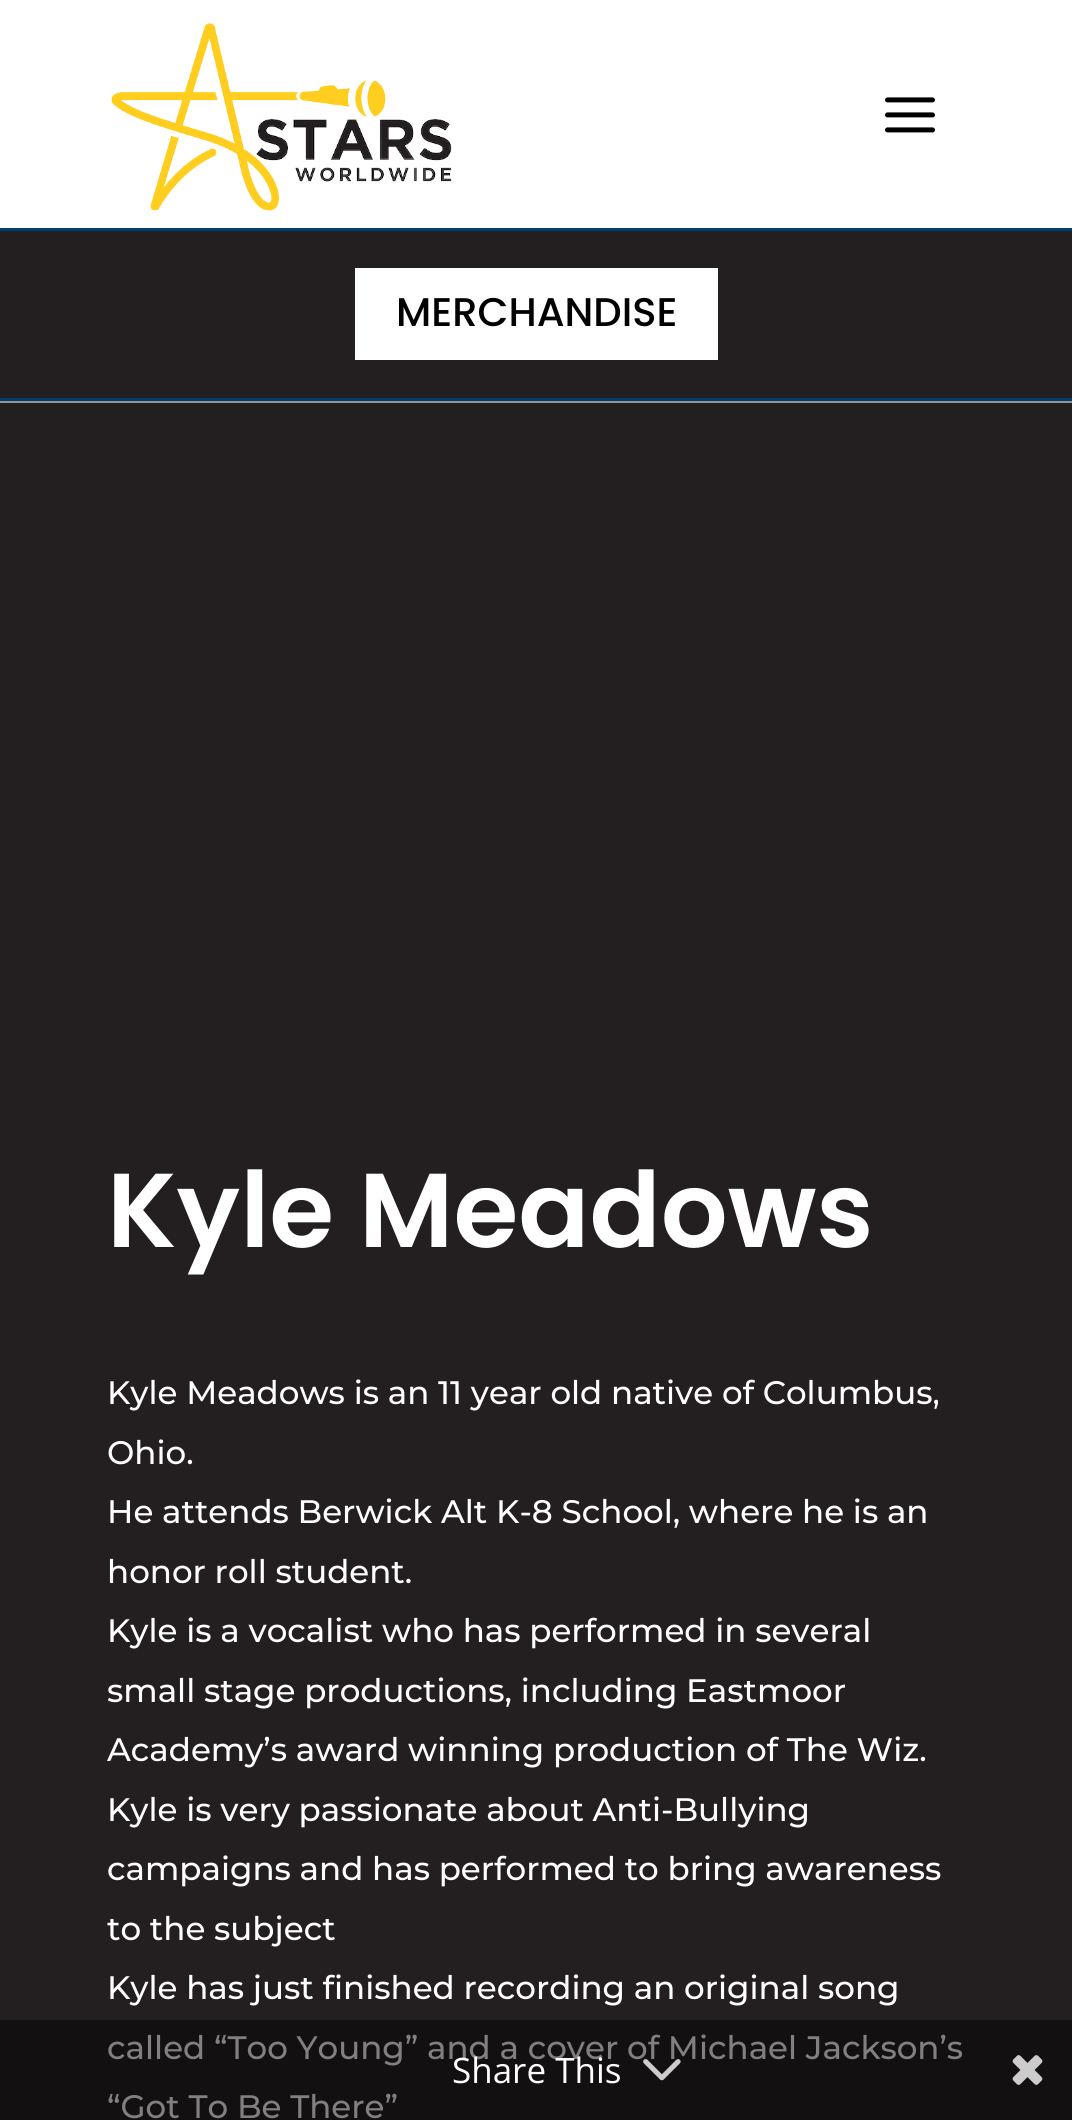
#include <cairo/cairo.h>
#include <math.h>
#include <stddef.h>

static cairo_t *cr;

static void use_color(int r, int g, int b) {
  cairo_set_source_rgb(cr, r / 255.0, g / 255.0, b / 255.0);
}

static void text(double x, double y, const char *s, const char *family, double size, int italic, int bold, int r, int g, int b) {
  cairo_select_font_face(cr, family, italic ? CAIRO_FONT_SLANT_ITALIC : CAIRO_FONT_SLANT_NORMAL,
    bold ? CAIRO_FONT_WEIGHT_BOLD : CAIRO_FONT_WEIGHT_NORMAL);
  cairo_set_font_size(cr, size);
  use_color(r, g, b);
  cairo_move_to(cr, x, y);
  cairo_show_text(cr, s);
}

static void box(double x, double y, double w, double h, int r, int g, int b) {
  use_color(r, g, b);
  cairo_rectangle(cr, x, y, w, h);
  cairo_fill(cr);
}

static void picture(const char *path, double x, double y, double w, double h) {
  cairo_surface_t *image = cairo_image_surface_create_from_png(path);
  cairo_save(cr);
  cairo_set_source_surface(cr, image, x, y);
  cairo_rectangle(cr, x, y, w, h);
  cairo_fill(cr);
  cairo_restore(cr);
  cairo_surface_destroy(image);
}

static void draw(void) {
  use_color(255, 255, 255);
  cairo_paint(cr);
  picture("img_01.png", 111, 23, 341, 188);
  picture("img_02.png", 885, 97, 50, 36);
  box(0, 231, 1072, 167, 35, 31, 32);
  box(0, 228, 1072, 3, 0, 63, 109);
  box(0, 398, 1072, 3, 0, 63, 109);
  box(355, 268, 363, 92, 255, 255, 255);
  box(0, 403, 1072, 1617, 35, 31, 32);
  box(0, 2020, 1072, 100, 18, 16, 16);
  box(0, 401, 1072, 2, 149, 147, 148);
  picture("img_04.png", 1012, 2055, 31, 30);
  text(396, 326, "MERCHANDISE", "Poppins Medium", 40, 0, 0, 0, 0, 0);
  text(107, 1247, "Kyle Meadows", "Poppins SemiBold", 105, 0, 0, 255, 255, 255);
  text(107, 1404, "Kyle Meadows is an 11 year old native of Columbus,", "Montserrat Medium", 32.5, 0, 0, 255, 255, 255);
  text(107, 1464, "Ohio.", "Montserrat Medium", 32.5, 0, 0, 255, 255, 255);
  text(107, 1523, "He attends Berwick Alt K-8 School, where he is an", "Montserrat Medium", 32.5, 0, 0, 255, 255, 255);
  text(107, 1583, "honor roll student.", "Montserrat Medium", 32.5, 0, 0, 255, 255, 255);
  text(107, 1642, "Kyle is a vocalist who has performed in several", "Montserrat Medium", 32.5, 0, 0, 255, 255, 255);
  text(107, 1702, "small stage productions, including Eastmoor", "Montserrat Medium", 32.5, 0, 0, 255, 255, 255);
  text(107, 1761, "Academy’s award winning production of The Wiz.", "Montserrat Medium", 32.5, 0, 0, 255, 255, 255);
  text(107, 1821, "Kyle is very passionate about Anti-Bullying", "Montserrat Medium", 32.5, 0, 0, 255, 255, 255);
  text(107, 1880, "campaigns and has performed to bring awareness", "Montserrat Medium", 32.5, 0, 0, 255, 255, 255);
  text(107, 1940, "to the subject", "Montserrat Medium", 32.5, 0, 0, 255, 255, 255);
  text(107, 1999, "Kyle has just finished recording an original song", "Montserrat Medium", 32.5, 0, 0, 255, 255, 255);
  text(107, 2059, "called “Too Young” and a cover of Michael Jackson’s", "Montserrat Medium", 32.5, 0, 0, 128, 128, 128);
  text(107, 2118, "“Got To Be There”", "Montserrat Medium", 32.5, 0, 0, 128, 128, 128);
  text(452, 2083, "Share This", "Open Sans", 35, 0, 0, 255, 255, 255);
  picture("img_03.png", 643, 2059, 38, 22);
}

int main(void) {
  cairo_surface_t *surface = cairo_image_surface_create(CAIRO_FORMAT_RGB24, 1072, 2120);
  cr = cairo_create(surface);
  cairo_font_options_t *options = cairo_font_options_create();
  cairo_font_options_set_hint_metrics(options, CAIRO_HINT_METRICS_OFF);
  cairo_font_options_set_hint_style(options, CAIRO_HINT_STYLE_NONE);
  cairo_set_font_options(cr, options);
  cairo_set_miter_limit(cr, 4);
  draw();
  cairo_surface_write_to_png(surface, "out.png");
  cairo_font_options_destroy(options);
  cairo_destroy(cr);
  cairo_surface_destroy(surface);
  return 0;
}
